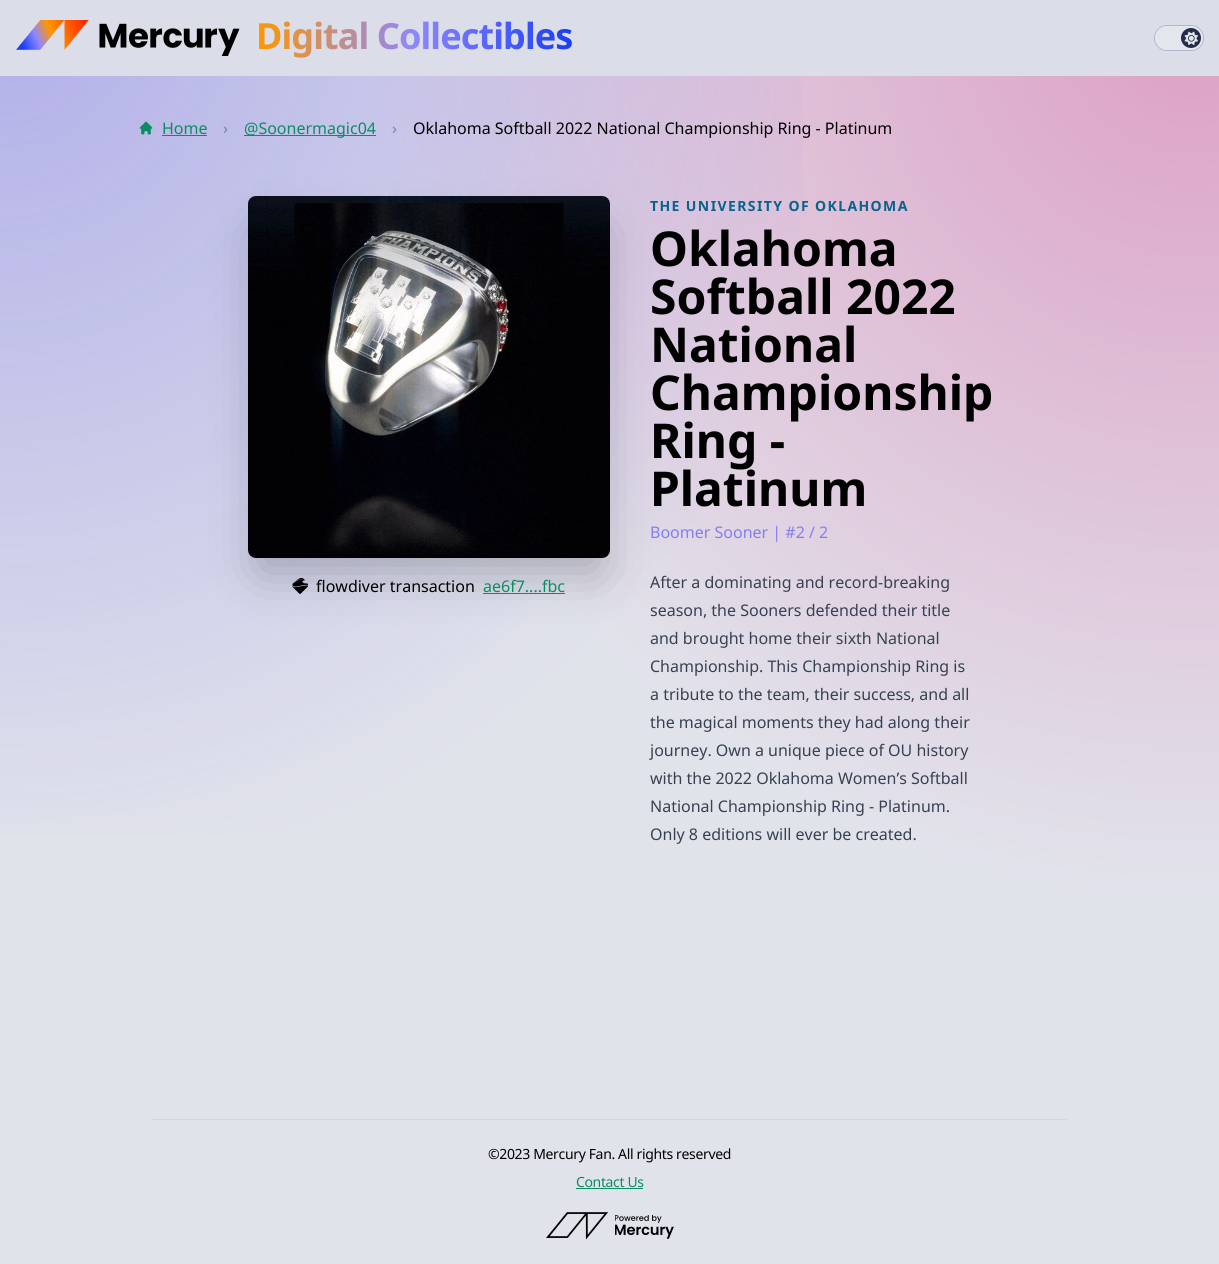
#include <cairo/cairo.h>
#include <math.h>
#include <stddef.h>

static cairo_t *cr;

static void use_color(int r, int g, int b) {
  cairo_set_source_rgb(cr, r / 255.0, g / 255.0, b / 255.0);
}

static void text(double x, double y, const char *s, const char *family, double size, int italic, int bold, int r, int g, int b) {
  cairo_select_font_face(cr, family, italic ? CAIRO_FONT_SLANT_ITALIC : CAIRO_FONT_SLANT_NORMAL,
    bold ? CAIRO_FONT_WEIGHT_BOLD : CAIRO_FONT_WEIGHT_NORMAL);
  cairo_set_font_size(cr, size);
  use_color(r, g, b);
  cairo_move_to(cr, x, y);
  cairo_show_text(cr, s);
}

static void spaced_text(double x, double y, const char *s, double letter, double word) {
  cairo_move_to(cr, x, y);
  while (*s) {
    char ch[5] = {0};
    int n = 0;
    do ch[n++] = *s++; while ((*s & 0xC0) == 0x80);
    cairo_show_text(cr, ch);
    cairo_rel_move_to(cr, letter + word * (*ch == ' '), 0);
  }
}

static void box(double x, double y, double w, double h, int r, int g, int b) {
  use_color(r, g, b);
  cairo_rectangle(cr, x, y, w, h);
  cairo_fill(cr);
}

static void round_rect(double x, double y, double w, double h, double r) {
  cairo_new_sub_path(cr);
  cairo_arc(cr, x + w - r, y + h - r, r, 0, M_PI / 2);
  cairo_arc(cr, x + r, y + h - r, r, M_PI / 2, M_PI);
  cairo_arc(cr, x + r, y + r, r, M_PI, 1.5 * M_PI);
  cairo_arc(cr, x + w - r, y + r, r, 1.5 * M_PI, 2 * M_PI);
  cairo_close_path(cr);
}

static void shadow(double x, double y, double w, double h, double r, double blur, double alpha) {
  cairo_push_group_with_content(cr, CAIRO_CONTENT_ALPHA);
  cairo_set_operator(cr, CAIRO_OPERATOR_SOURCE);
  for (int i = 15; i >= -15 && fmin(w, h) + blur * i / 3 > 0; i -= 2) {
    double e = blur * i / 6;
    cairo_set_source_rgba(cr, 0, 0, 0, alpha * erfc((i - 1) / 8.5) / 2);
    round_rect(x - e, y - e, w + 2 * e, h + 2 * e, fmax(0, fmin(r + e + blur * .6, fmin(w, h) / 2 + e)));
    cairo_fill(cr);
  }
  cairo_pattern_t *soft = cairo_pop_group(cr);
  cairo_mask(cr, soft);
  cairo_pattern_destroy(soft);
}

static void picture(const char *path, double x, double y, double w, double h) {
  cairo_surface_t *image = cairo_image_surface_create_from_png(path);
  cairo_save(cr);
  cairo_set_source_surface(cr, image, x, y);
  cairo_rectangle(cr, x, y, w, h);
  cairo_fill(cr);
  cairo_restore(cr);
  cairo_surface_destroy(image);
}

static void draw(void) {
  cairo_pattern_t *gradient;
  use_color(255, 255, 255);
  cairo_paint(cr);
  gradient = cairo_pattern_create_radial(0, 0, 0, 0, 0, 1);
  cairo_pattern_set_matrix(gradient, &(cairo_matrix_t){1.0 / 1689, 0, 0, 1.0 / 1770, -1.0 * 1195 / 1689, -1.0 * 13 / 1770});
  cairo_pattern_add_color_stop_rgba(gradient, 0, 0.867, 0.627, 0.773, 1);
  cairo_pattern_add_color_stop_rgba(gradient, 0.5, 0.882, 0.89, 0.922, 1);
  cairo_set_source(cr, gradient);
  cairo_pattern_destroy(gradient);
  cairo_rectangle(cr, 0, 76, 1219, 1188);
  cairo_fill(cr);
  gradient = cairo_pattern_create_radial(0, 0, 0, 0, 0, 1);
  cairo_pattern_set_matrix(gradient, &(cairo_matrix_t){1.0 / 1724, 0, 0, 1.0 / 1788, -1.0 * 0 / 1724, -1.0 * 0 / 1788});
  cairo_pattern_add_color_stop_rgba(gradient, 0, 0.31, 0.275, 0.898, 0.33);
  cairo_pattern_add_color_stop_rgba(gradient, 0.5, 0.31, 0.275, 0.898, 0);
  cairo_set_source(cr, gradient);
  cairo_pattern_destroy(gradient);
  cairo_rectangle(cr, 0, 76, 803, 758);
  cairo_fill(cr);
  box(0, 0, 1219, 76, 219, 222, 233);
  picture("img_01.png", 16, 20, 224, 36);
  round_rect(1154.5, 25.5, 49, 25, 12.5);
  use_color(175, 182, 206);
  cairo_set_line_width(cr, 1);
  cairo_stroke(cr);
  use_color(228, 230, 238);
  round_rect(1155, 26, 48, 24, 12);
  cairo_fill(cr);
  use_color(36, 44, 70);
  cairo_arc(cr, 1191, 38, 10, 0, 2 * M_PI);
  cairo_fill(cr);
  picture("img_02.png", 1184, 31, 14, 14);
  picture("img_03.png", 139, 121, 14, 14);
  box(162, 135, 45, 1, 11, 140, 97);
  box(244, 135, 132, 1, 11, 140, 97);
  use_color(0, 0, 0);
  shadow(260, 233, 338, 338, 0, 25, 0.25);
  picture("img_04.png", 248, 196, 362, 362);
  picture("img_05.png", 292, 578, 16, 16);
  box(483, 593, 82, 1, 11, 140, 97);
  box(152, 1119, 915, 1, 210, 214, 227);
  box(576, 1188, 67, 1, 11, 140, 97);
  picture("img_06.png", 546, 1212, 128, 28);
  cairo_select_font_face(cr, "Noto Sans", CAIRO_FONT_SLANT_NORMAL, CAIRO_FONT_WEIGHT_BOLD);
  cairo_set_font_size(cr, 36);
  gradient = cairo_pattern_create_linear(256, 38, 572, 38);
  cairo_pattern_add_color_stop_rgba(gradient, 0, 1, 0.592, 0, 1);
  cairo_pattern_add_color_stop_rgba(gradient, 0.5, 0.561, 0.525, 1, 1);
  cairo_pattern_add_color_stop_rgba(gradient, 1, 0.098, 0.243, 0.965, 1);
  cairo_set_source(cr, gradient);
  cairo_pattern_destroy(gradient);
  spaced_text(256, 49, "Digital Collectibles", -0.9, 0);
  text(162, 134, "Home", "Noto Sans", 16, 0, 0, 11, 140, 97);
  text(223, 134, "›", "Noto Sans", 16, 0, 0, 123, 129, 170);
  text(244, 134, "@Soonermagic04", "Noto Sans", 16, 0, 0, 11, 140, 97);
  text(392, 134, "›", "Noto Sans", 16, 0, 0, 123, 129, 170);
  text(413, 134, "Oklahoma Softball 2022 National Championship Ring - Platinum", "Noto Sans", 16, 0, 0, 0, 0, 0);
  text(316, 592, "flowdiver transaction", "Noto Sans", 16, 0, 0, 0, 0, 0);
  text(483, 592, "ae6f7....fbc", "Noto Sans", 16, 0, 0, 11, 140, 97);
  cairo_select_font_face(cr, "Noto Sans", CAIRO_FONT_SLANT_NORMAL, CAIRO_FONT_WEIGHT_BOLD);
  cairo_set_font_size(cr, 14);
  use_color(8, 99, 140);
  spaced_text(650, 211, "THE UNIVERSITY OF OKLAHOMA", 1.4, 0);
  text(650, 266, "Oklahoma", "Noto Sans", 48, 0, 1, 0, 0, 0);
  text(650, 314, "Softball 2022", "Noto Sans", 48, 0, 1, 0, 0, 0);
  text(650, 362, "National", "Noto Sans", 48, 0, 1, 0, 0, 0);
  text(650, 410, "Championship", "Noto Sans", 48, 0, 1, 0, 0, 0);
  text(650, 458, "Ring -", "Noto Sans", 48, 0, 1, 0, 0, 0);
  text(650, 506, "Platinum", "Noto Sans", 48, 0, 1, 0, 0, 0);
  text(650, 538, "Boomer Sooner | #2 / 2", "Noto Sans", 16, 0, 0, 132, 126, 237);
  text(650, 588, "After a dominating and record-breaking", "Noto Sans", 16, 0, 0, 55, 65, 81);
  text(650, 616, "season, the Sooners defended their title", "Noto Sans", 16, 0, 0, 55, 65, 81);
  text(650, 644, "and brought home their sixth National", "Noto Sans", 16, 0, 0, 55, 65, 81);
  text(650, 672, "Championship. This Championship Ring is", "Noto Sans", 16, 0, 0, 55, 65, 81);
  text(650, 700, "a tribute to the team, their success, and all", "Noto Sans", 16, 0, 0, 55, 65, 81);
  text(650, 728, "the magical moments they had along their", "Noto Sans", 16, 0, 0, 55, 65, 81);
  text(650, 756, "journey. Own a unique piece of OU history", "Noto Sans", 16, 0, 0, 55, 65, 81);
  text(650, 784, "with the 2022 Oklahoma Women’s Softball", "Noto Sans", 16, 0, 0, 55, 65, 81);
  text(650, 812, "National Championship Ring - Platinum.", "Noto Sans", 16, 0, 0, 55, 65, 81);
  text(650, 840, "Only 8 editions will ever be created.", "Noto Sans", 16, 0, 0, 55, 65, 81);
  cairo_set_font_size(cr, 14);
  use_color(0, 0, 0);
  spaced_text(488, 1159, "©2023 Mercury Fan. All rights reserved", -0.35, 0);
  use_color(11, 140, 97);
  spaced_text(576, 1187, "Contact Us", -0.35, 0);
}

int main(void) {
  cairo_surface_t *surface = cairo_image_surface_create(CAIRO_FORMAT_RGB24, 1219, 1264);
  cr = cairo_create(surface);
  cairo_font_options_t *options = cairo_font_options_create();
  cairo_font_options_set_hint_metrics(options, CAIRO_HINT_METRICS_OFF);
  cairo_font_options_set_hint_style(options, CAIRO_HINT_STYLE_NONE);
  cairo_set_font_options(cr, options);
  cairo_set_miter_limit(cr, 4);
  draw();
  cairo_surface_write_to_png(surface, "out.png");
  cairo_font_options_destroy(options);
  cairo_destroy(cr);
  cairo_surface_destroy(surface);
  return 0;
}
